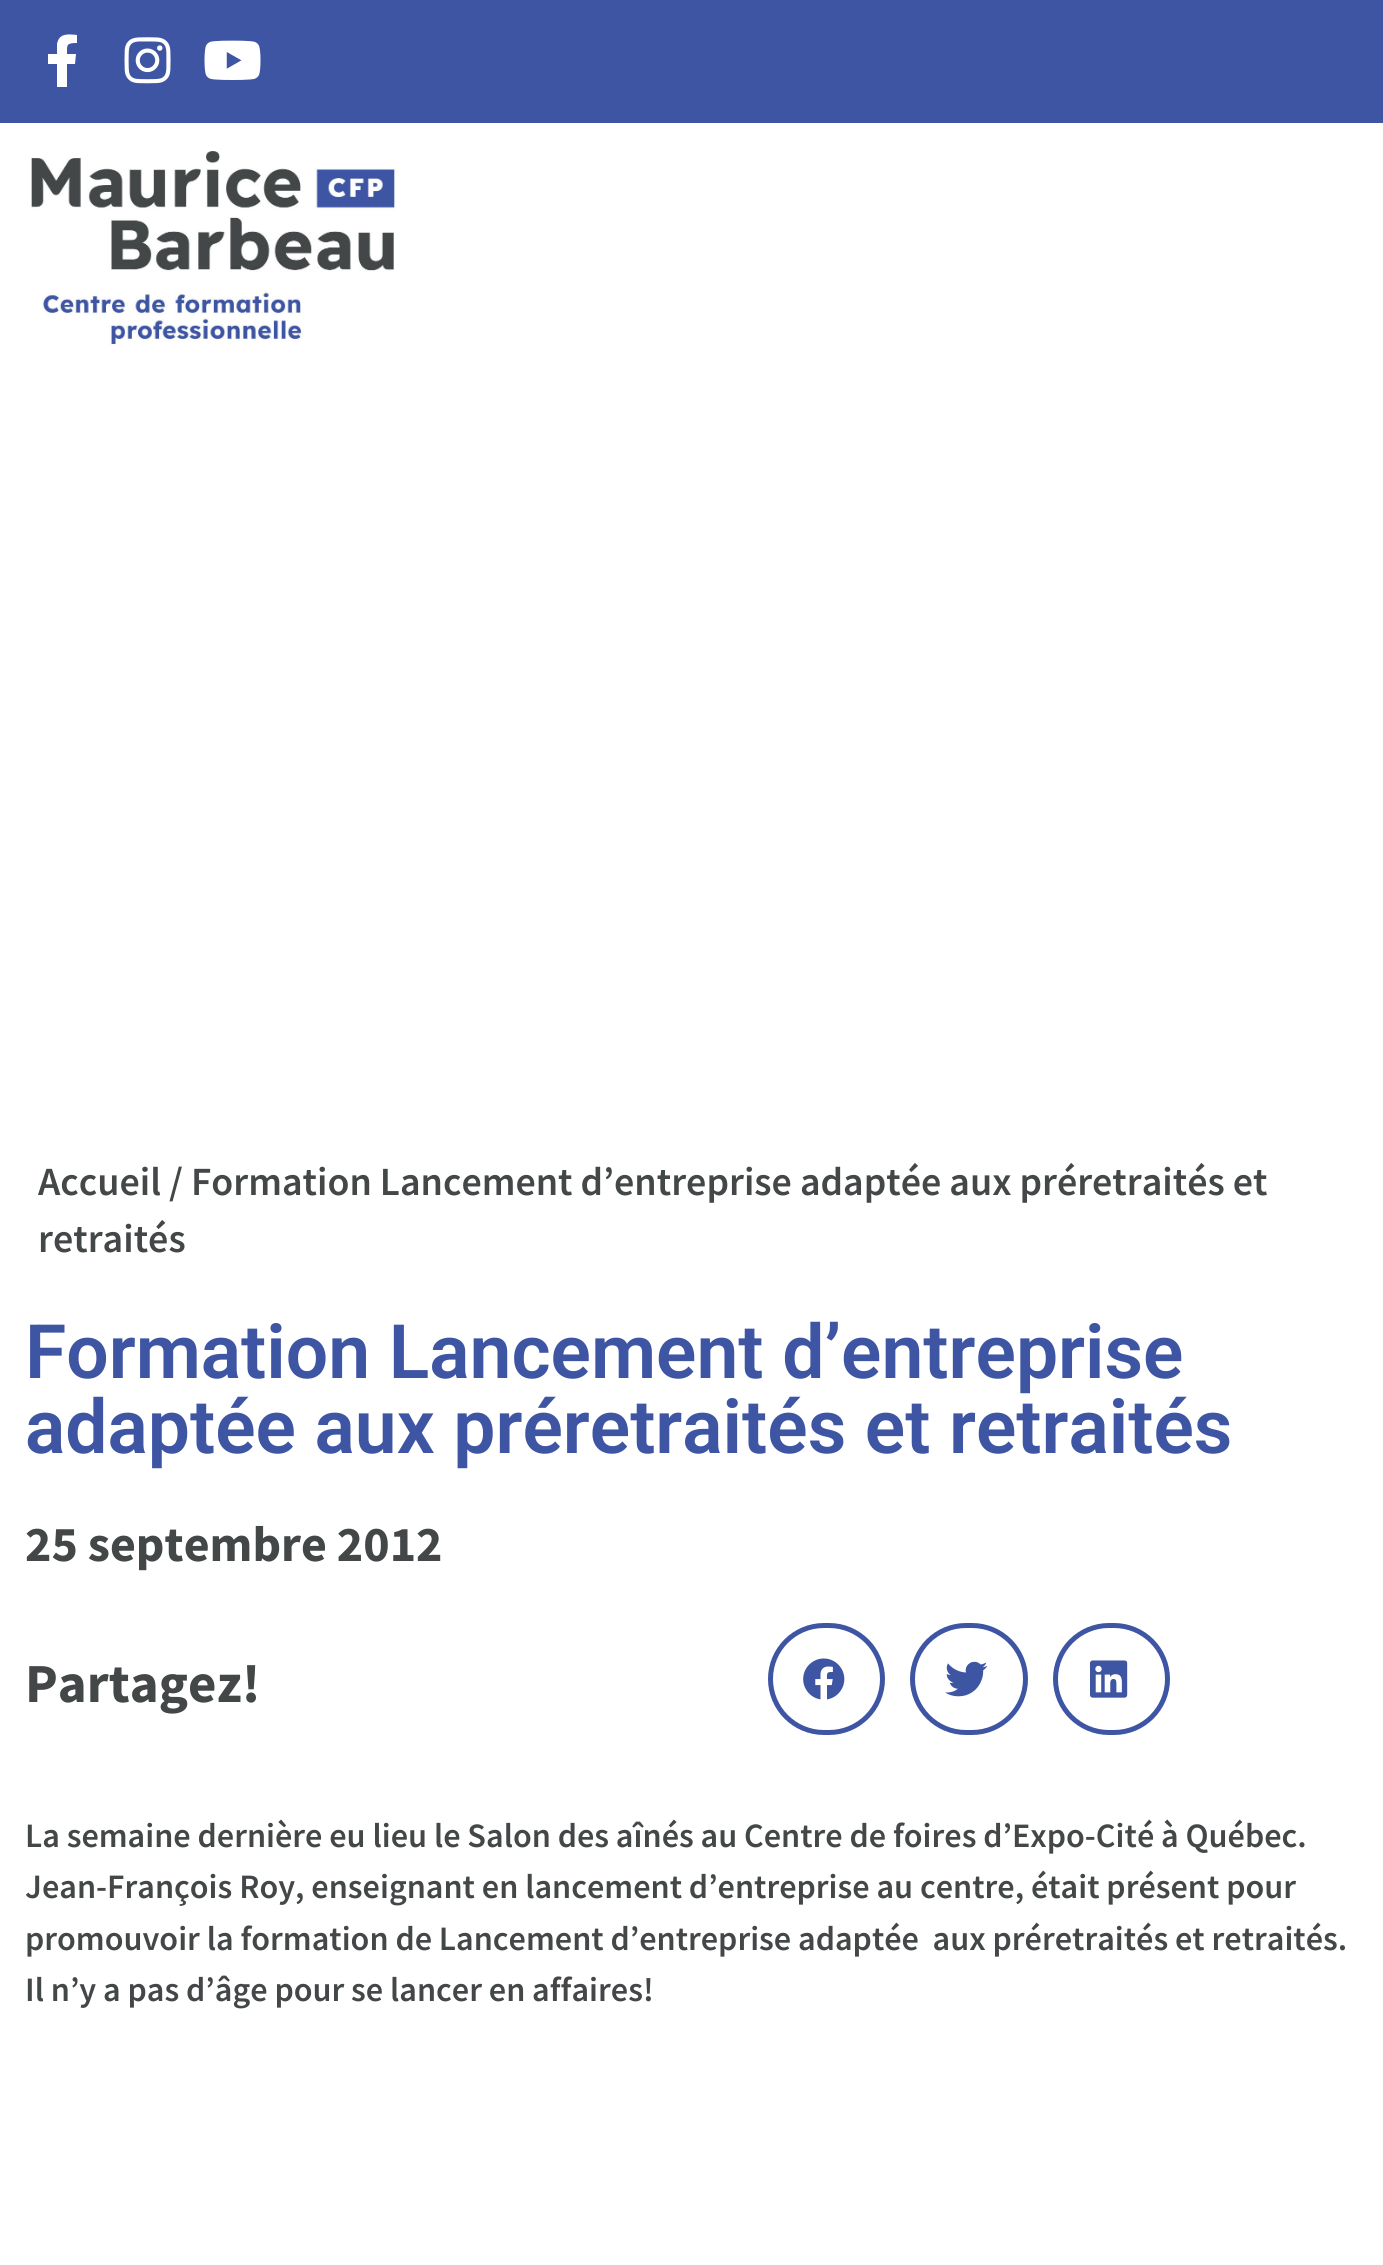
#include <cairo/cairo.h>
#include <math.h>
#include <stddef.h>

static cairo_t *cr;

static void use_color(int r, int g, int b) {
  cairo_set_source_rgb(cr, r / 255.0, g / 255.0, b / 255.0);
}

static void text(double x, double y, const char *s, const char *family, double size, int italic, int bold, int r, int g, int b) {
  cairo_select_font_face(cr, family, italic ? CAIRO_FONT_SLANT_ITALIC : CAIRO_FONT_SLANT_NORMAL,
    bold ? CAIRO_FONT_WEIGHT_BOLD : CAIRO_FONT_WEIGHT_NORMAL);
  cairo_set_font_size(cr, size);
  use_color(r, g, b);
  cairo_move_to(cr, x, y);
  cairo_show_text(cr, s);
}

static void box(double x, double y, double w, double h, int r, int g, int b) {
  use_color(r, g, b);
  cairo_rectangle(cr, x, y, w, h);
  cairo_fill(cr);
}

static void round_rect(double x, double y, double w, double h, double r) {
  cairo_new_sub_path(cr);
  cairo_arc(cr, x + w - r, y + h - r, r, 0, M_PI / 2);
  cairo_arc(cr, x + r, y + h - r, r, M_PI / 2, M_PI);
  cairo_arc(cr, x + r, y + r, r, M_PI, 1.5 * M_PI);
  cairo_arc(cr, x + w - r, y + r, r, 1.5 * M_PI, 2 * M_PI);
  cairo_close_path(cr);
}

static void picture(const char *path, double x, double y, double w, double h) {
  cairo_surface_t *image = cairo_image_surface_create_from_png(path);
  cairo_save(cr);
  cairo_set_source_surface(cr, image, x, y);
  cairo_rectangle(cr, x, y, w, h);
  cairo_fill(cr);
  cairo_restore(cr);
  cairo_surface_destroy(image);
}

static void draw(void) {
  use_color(255, 255, 255);
  cairo_paint(cr);
  box(0, 0, 1383, 123, 62, 85, 163);
  use_color(255, 255, 255);
  cairo_new_path(cr);
  cairo_move_to(cr, 75, 64);
  cairo_line_to(cr, 67, 64);
  cairo_line_to(cr, 67, 87);
  cairo_line_to(cr, 57, 87);
  cairo_line_to(cr, 57, 64);
  cairo_line_to(cr, 48, 64);
  cairo_line_to(cr, 48, 54);
  cairo_line_to(cr, 57, 54);
  cairo_line_to(cr, 57, 44);
  cairo_curve_to(cr, 59, 33, 68, 34, 77, 35);
  cairo_line_to(cr, 77, 43);
  cairo_curve_to(cr, 66, 43, 67, 45, 67, 54);
  cairo_line_to(cr, 76, 54);
  cairo_close_path(cr);
  cairo_fill(cr);
  picture("img_01.png", 124, 37, 47, 47);
  picture("img_02.png", 204, 40, 57, 40);
  picture("img_03.png", 31, 151, 366, 195);
  round_rect(770.5, 1625.5, 112, 107, 53.5);
  use_color(62, 85, 163);
  cairo_set_line_width(cr, 5);
  cairo_stroke(cr);
  picture("img_04.png", 803, 1658, 42, 42);
  round_rect(912.5, 1625.5, 113, 107, 53.5);
  cairo_stroke(cr);
  picture("img_05.png", 945, 1661, 43, 36);
  round_rect(1055.5, 1625.5, 112, 107, 53.5);
  cairo_stroke(cr);
  picture("img_06.png", 1090, 1660, 38, 38);
  text(38, 1195, "Accueil / Formation Lancement d’entreprise adaptée aux préretraités et", "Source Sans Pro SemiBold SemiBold", 40, 0, 0, 67, 71, 72);
  text(38, 1252, "retraités", "Source Sans Pro SemiBold SemiBold", 40, 0, 0, 67, 71, 72);
  text(25, 1378, "Formation Lancement d’entreprise", "Roboto SemiBold", 75, 0, 0, 62, 85, 163);
  text(25, 1453, "adaptée aux préretraités et retraités", "Roboto SemiBold", 75, 0, 0, 62, 85, 163);
  text(25, 1561, "25 septembre 2012", "Source Sans Pro", 50, 0, 1, 67, 71, 72);
  text(25, 1702, "Partagez!", "Source Sans Pro", 55, 0, 1, 67, 71, 72);
  text(25, 1847, "La semaine dernière eu lieu le Salon des aînés au Centre de foires d’Expo-Cité à Québec.", "Source Sans Pro SemiBold SemiBold", 34.2, 0, 0, 67, 71, 72);
  text(25, 1898, "Jean-François Roy, enseignant en lancement d’entreprise au centre, était présent pour", "Source Sans Pro SemiBold SemiBold", 34.2, 0, 0, 67, 71, 72);
  text(25, 1950, "promouvoir la formation de Lancement d’entreprise adaptée  aux préretraités et retraités.", "Source Sans Pro SemiBold SemiBold", 34.2, 0, 0, 67, 71, 72);
  text(25, 2001, "Il n’y a pas d’âge pour se lancer en affaires!", "Source Sans Pro SemiBold SemiBold", 34.2, 0, 0, 67, 71, 72);
}

int main(void) {
  cairo_surface_t *surface = cairo_image_surface_create(CAIRO_FORMAT_RGB24, 1383, 2265);
  cr = cairo_create(surface);
  cairo_font_options_t *options = cairo_font_options_create();
  cairo_font_options_set_hint_metrics(options, CAIRO_HINT_METRICS_OFF);
  cairo_font_options_set_hint_style(options, CAIRO_HINT_STYLE_NONE);
  cairo_set_font_options(cr, options);
  cairo_set_miter_limit(cr, 4);
  draw();
  cairo_surface_write_to_png(surface, "out.png");
  cairo_font_options_destroy(options);
  cairo_destroy(cr);
  cairo_surface_destroy(surface);
  return 0;
}
